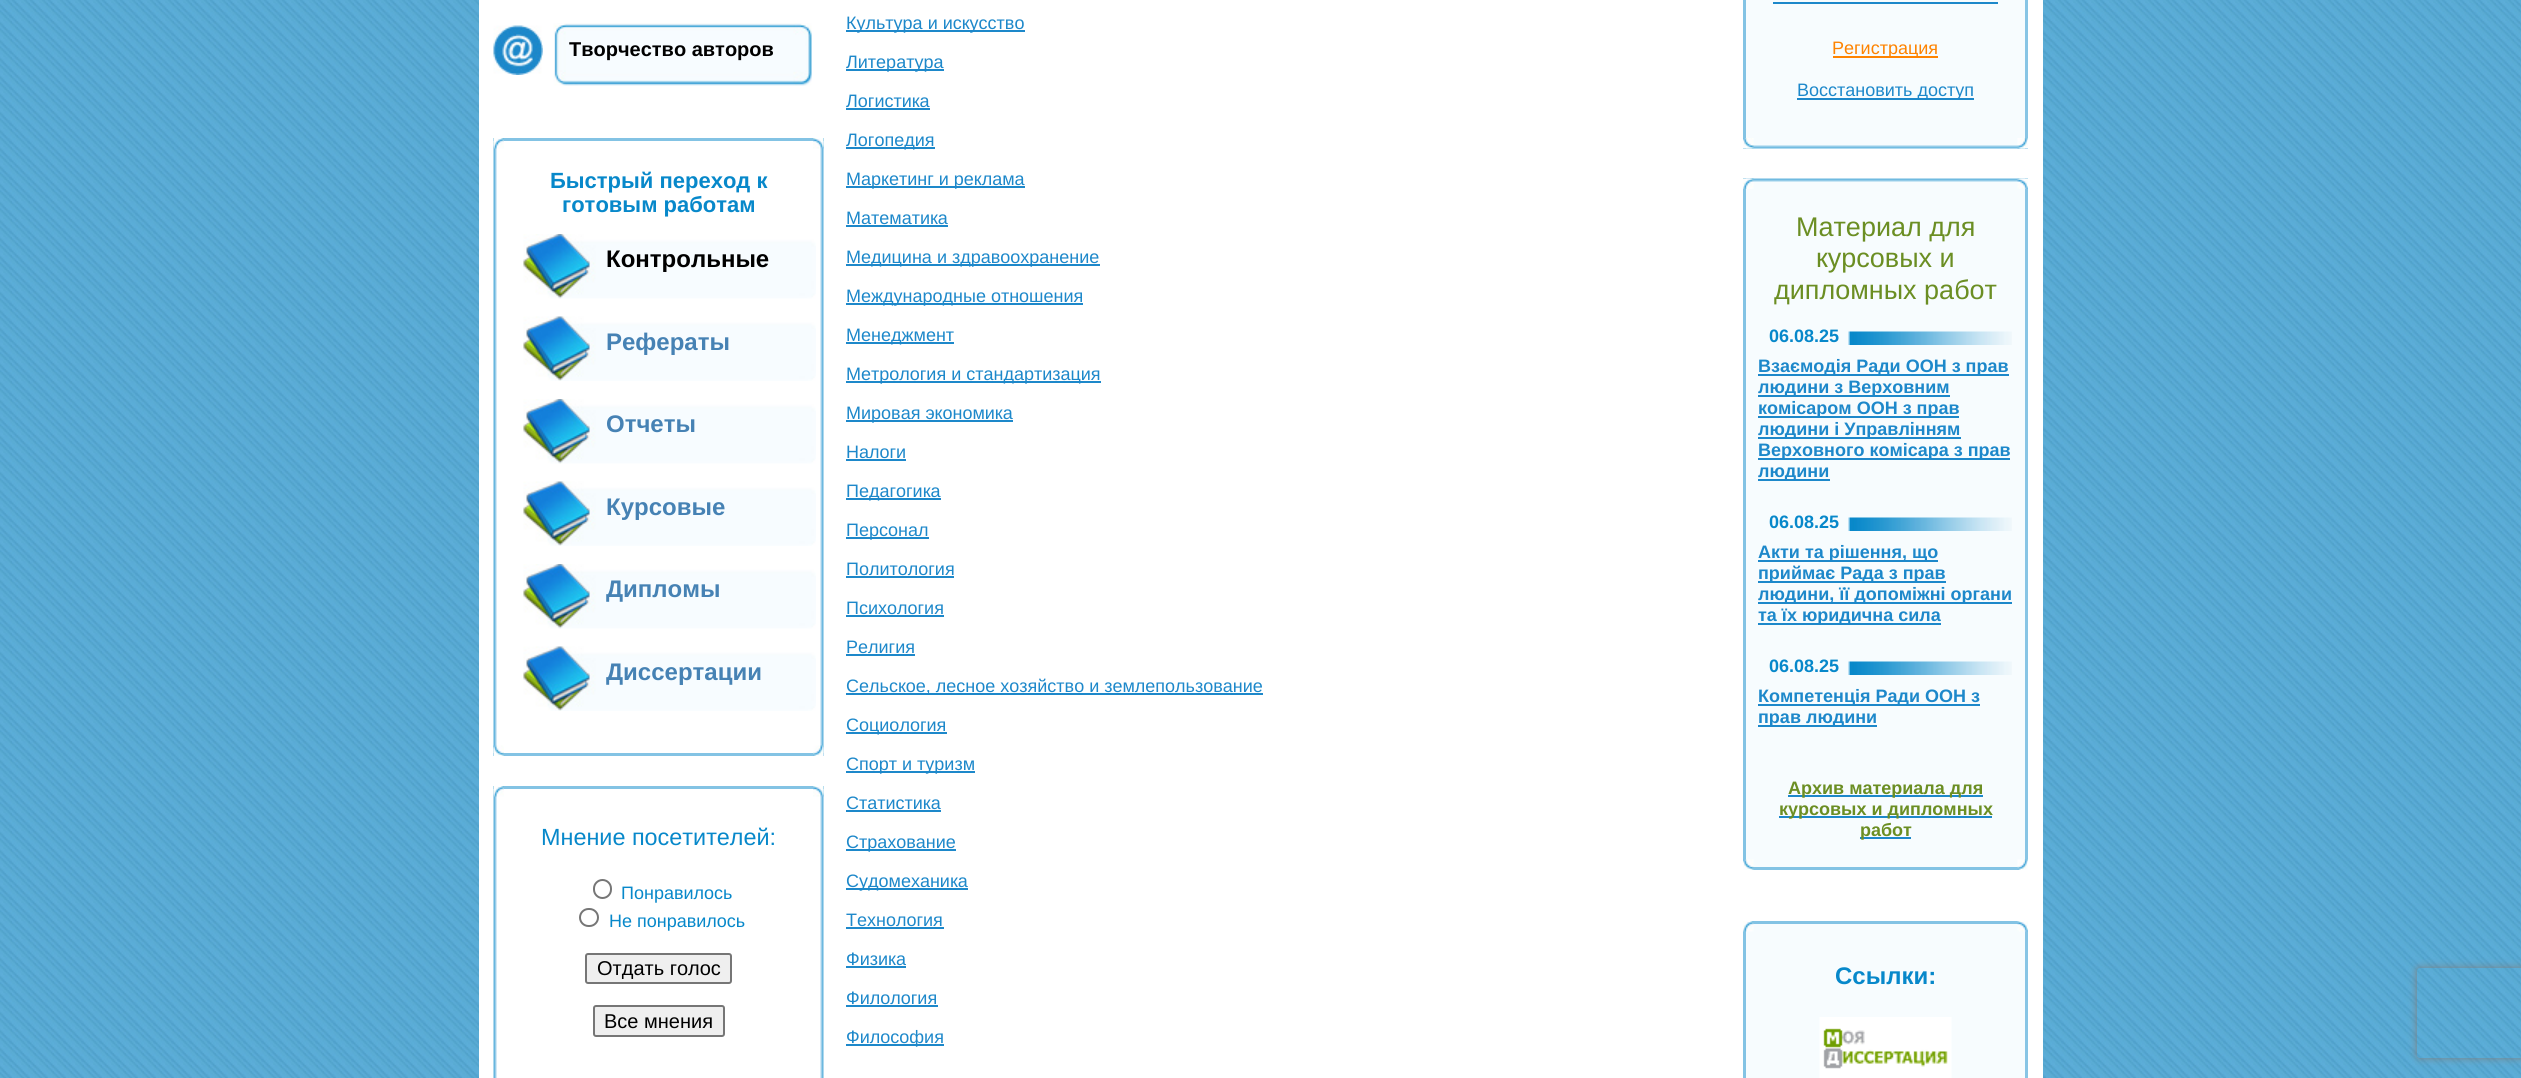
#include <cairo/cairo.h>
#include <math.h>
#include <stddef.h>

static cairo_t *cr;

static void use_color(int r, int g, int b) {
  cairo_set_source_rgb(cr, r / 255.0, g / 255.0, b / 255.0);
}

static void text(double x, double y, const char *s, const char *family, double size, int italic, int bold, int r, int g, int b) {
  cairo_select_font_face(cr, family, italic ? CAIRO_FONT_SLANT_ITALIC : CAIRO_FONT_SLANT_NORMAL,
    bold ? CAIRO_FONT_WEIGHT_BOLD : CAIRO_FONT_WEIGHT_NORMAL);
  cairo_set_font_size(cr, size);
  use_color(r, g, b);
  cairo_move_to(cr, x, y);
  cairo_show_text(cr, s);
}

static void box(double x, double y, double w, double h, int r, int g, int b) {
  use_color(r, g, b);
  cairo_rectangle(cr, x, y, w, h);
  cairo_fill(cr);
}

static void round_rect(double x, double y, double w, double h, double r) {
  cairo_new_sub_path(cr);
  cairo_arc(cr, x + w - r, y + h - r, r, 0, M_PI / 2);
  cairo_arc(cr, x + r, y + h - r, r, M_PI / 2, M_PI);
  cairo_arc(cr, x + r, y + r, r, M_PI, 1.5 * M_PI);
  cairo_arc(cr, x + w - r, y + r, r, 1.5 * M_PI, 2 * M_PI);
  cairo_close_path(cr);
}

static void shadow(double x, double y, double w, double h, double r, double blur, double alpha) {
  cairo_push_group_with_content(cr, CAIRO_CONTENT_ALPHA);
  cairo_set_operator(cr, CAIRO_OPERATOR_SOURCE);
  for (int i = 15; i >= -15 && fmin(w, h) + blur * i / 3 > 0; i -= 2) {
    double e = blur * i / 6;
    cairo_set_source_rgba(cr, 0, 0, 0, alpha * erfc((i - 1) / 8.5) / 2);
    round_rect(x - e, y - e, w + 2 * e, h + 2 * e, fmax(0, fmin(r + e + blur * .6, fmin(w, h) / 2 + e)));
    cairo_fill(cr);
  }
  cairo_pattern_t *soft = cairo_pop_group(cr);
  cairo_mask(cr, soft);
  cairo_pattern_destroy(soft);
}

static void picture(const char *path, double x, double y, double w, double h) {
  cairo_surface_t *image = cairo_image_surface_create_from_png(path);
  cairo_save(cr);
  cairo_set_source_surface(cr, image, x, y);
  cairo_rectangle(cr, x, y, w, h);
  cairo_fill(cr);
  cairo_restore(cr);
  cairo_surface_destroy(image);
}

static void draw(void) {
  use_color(255, 255, 255);
  cairo_paint(cr);
  picture("img_01.png", 0, 0, 2521, 1078);
  box(479, 0, 1564, 1078, 255, 255, 255);
  picture("img_02.png", 493, 25, 50, 50);
  picture("img_03.png", 553, 23, 259, 63);
  box(493, 138, 331, 3, 131, 195, 228);
  picture("img_04.png", 820, 138, 4, 615);
  box(493, 753, 331, 3, 131, 195, 228);
  picture("img_05.png", 493, 138, 4, 618);
  picture("img_06.png", 493, 138, 11, 11);
  picture("img_07.png", 813, 138, 11, 11);
  picture("img_08.png", 493, 745, 11, 11);
  picture("img_09.png", 813, 745, 11, 11);
  picture("img_10.png", 523, 234, 293, 65);
  picture("img_11.png", 523, 316, 293, 65);
  picture("img_10.png", 523, 399, 293, 65);
  picture("img_11.png", 523, 481, 293, 65);
  picture("img_10.png", 523, 564, 293, 65);
  picture("img_11.png", 523, 646, 293, 65);
  box(493, 786, 331, 3, 131, 195, 228);
  picture("img_12.png", 820, 786, 4, 292);
  picture("img_13.png", 493, 786, 4, 292);
  picture("img_06.png", 493, 786, 11, 11);
  picture("img_07.png", 813, 786, 11, 11);
  round_rect(594, 880, 17, 18, 8.5);
  use_color(118, 118, 118);
  cairo_stroke(cr);
  round_rect(580, 909, 18, 17, 8.5);
  cairo_stroke(cr);
  use_color(239, 239, 239);
  round_rect(586, 954, 145, 29, 2);
  cairo_fill_preserve(cr);
  use_color(118, 118, 118);
  cairo_stroke(cr);
  use_color(239, 239, 239);
  round_rect(594, 1006, 130, 30, 2);
  cairo_fill_preserve(cr);
  use_color(118, 118, 118);
  cairo_stroke(cr);
  box(846, 30, 179, 2, 29, 136, 202);
  box(846, 69, 98, 2, 29, 136, 202);
  box(846, 108, 84, 2, 29, 136, 202);
  box(846, 147, 89, 2, 29, 136, 202);
  box(846, 186, 179, 2, 29, 136, 202);
  box(846, 225, 102, 2, 29, 136, 202);
  box(846, 264, 254, 2, 29, 136, 202);
  box(846, 303, 237, 2, 29, 136, 202);
  box(846, 342, 108, 2, 29, 136, 202);
  box(846, 381, 255, 2, 29, 136, 202);
  box(846, 420, 167, 2, 29, 136, 202);
  box(846, 459, 60, 2, 29, 136, 202);
  box(846, 498, 95, 2, 29, 136, 202);
  box(846, 537, 83, 2, 29, 136, 202);
  box(846, 576, 108, 2, 29, 136, 202);
  box(846, 615, 98, 2, 29, 136, 202);
  box(846, 654, 69, 2, 29, 136, 202);
  box(846, 693, 417, 2, 29, 136, 202);
  box(846, 732, 101, 2, 29, 136, 202);
  box(846, 771, 129, 2, 29, 136, 202);
  box(846, 810, 95, 2, 29, 136, 202);
  box(846, 849, 110, 2, 29, 136, 202);
  box(846, 888, 122, 2, 29, 136, 202);
  box(846, 927, 98, 2, 29, 136, 202);
  box(846, 966, 60, 2, 29, 136, 202);
  box(846, 1005, 92, 2, 29, 136, 202);
  box(846, 1044, 98, 2, 29, 136, 202);
  box(1746, 0, 279, 149, 247, 252, 254);
  box(2025, 0, 3, 149, 136, 197, 229);
  picture("img_14.png", 1746, 145, 282, 4);
  box(1743, 0, 3, 149, 131, 195, 228);
  picture("img_15.png", 1743, 138, 11, 11);
  picture("img_16.png", 2017, 138, 11, 11);
  box(1773, 2, 225, 2, 29, 136, 202);
  box(1833, 56, 105, 2, 254, 131, 0);
  box(1797, 98, 177, 2, 29, 136, 202);
  box(1746, 181, 279, 686, 247, 252, 254);
  picture("img_17.png", 1746, 178, 279, 4);
  box(2025, 178, 3, 682, 136, 197, 229);
  box(1753, 867, 265, 3, 131, 195, 228);
  box(1743, 178, 3, 682, 131, 195, 228);
  picture("img_18.png", 1743, 178, 11, 11);
  picture("img_19.png", 2017, 178, 11, 11);
  picture("img_20.png", 1743, 859, 11, 11);
  picture("img_21.png", 2017, 859, 11, 11);
  picture("img_22.png", 1848, 331, 164, 14);
  box(1758, 374, 251, 2, 29, 136, 202);
  box(1758, 395, 192, 2, 29, 136, 202);
  box(1758, 416, 201, 2, 29, 136, 202);
  box(1758, 437, 203, 2, 29, 136, 202);
  box(1758, 458, 252, 2, 29, 136, 202);
  box(1758, 479, 72, 2, 29, 136, 202);
  picture("img_22.png", 1848, 517, 164, 14);
  box(1758, 560, 180, 2, 29, 136, 202);
  box(1758, 581, 188, 2, 29, 136, 202);
  box(1758, 602, 254, 2, 29, 136, 202);
  box(1758, 623, 183, 2, 29, 136, 202);
  picture("img_22.png", 1848, 661, 164, 14);
  box(1758, 704, 222, 2, 29, 136, 202);
  box(1758, 725, 119, 2, 29, 136, 202);
  box(1788, 795, 195, 2, 29, 136, 202);
  box(1779, 816, 213, 2, 29, 136, 202);
  box(1860, 837, 51, 2, 29, 136, 202);
  box(1746, 924, 279, 154, 247, 252, 254);
  box(1753, 921, 265, 3, 131, 195, 228);
  box(2025, 931, 3, 147, 136, 197, 229);
  box(1743, 931, 3, 147, 131, 195, 228);
  picture("img_23.png", 1743, 921, 11, 11);
  picture("img_24.png", 2017, 921, 11, 11);
  picture("img_25.png", 1819, 1017, 133, 61);
  cairo_save(cr);
  cairo_set_fill_rule(cr, CAIRO_FILL_RULE_EVEN_ODD);
  cairo_new_path(cr);
  cairo_move_to(cr, 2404, 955);
  cairo_line_to(cr, 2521, 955);
  cairo_line_to(cr, 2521, 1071);
  cairo_line_to(cr, 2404, 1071);
  cairo_close_path(cr);
  cairo_move_to(cr, 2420, 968);
  cairo_line_to(cr, 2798, 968);
  cairo_curve_to(cr, 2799.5, 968, 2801, 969.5, 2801, 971);
  cairo_line_to(cr, 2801, 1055);
  cairo_curve_to(cr, 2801, 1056.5, 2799.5, 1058, 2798, 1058);
  cairo_line_to(cr, 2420, 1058);
  cairo_curve_to(cr, 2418.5, 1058, 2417, 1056.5, 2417, 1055);
  cairo_line_to(cr, 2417, 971);
  cairo_curve_to(cr, 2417, 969.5, 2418.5, 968, 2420, 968);
  cairo_close_path(cr);
  cairo_clip(cr);
  use_color(128, 128, 128);
  shadow(2417, 968, 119, 90, 3, 4, 1);
  cairo_restore(cr);
  text(569, 56, "Творчество авторов", "Liberation Sans", 20, 0, 1, 0, 0, 0);
  text(550, 188, "Быстрый переход к", "Liberation Sans", 22, 0, 1, 7, 136, 202);
  text(562, 212, "готовым работам", "Liberation Sans", 22, 0, 1, 7, 136, 202);
  text(606, 267, "Контрольные", "Liberation Sans", 24, 0, 1, 0, 0, 0);
  text(606, 350, "Рефераты", "Liberation Sans", 24, 0, 1, 70, 130, 180);
  text(606, 432, "Отчеты", "Liberation Sans", 24, 0, 1, 70, 130, 180);
  text(606, 515, "Курсовые", "Liberation Sans", 24, 0, 1, 70, 130, 180);
  text(606, 597, "Дипломы", "Liberation Sans", 24, 0, 1, 70, 130, 180);
  text(606, 680, "Диссертации", "Liberation Sans", 24, 0, 1, 70, 130, 180);
  text(541, 845, "Мнение посетителей:", "Liberation Sans", 23.4, 0, 0, 7, 136, 202);
  text(621, 899, "Понравилось", "Liberation Sans", 18, 0, 0, 7, 136, 202);
  text(609, 927, "Не понравилось", "Liberation Sans", 18, 0, 0, 7, 136, 202);
  text(597, 975, "Отдать голос", "Liberation Sans", 20, 0, 0, 0, 0, 0);
  text(604, 1028, "Все мнения", "Liberation Sans", 20, 0, 0, 0, 0, 0);
  text(846, 29, "Культура и искусство", "Liberation Sans", 18, 0, 0, 29, 136, 202);
  text(846, 68, "Литература", "Liberation Sans", 18, 0, 0, 29, 136, 202);
  text(846, 107, "Логистика", "Liberation Sans", 18, 0, 0, 29, 136, 202);
  text(846, 146, "Логопедия", "Liberation Sans", 18, 0, 0, 29, 136, 202);
  text(846, 185, "Маркетинг и реклама", "Liberation Sans", 18, 0, 0, 29, 136, 202);
  text(846, 224, "Математика", "Liberation Sans", 18, 0, 0, 29, 136, 202);
  text(846, 263, "Медицина и здравоохранение", "Liberation Sans", 18, 0, 0, 29, 136, 202);
  text(846, 302, "Международные отношения", "Liberation Sans", 18, 0, 0, 29, 136, 202);
  text(846, 341, "Менеджмент", "Liberation Sans", 18, 0, 0, 29, 136, 202);
  text(846, 380, "Метрология и стандартизация", "Liberation Sans", 18, 0, 0, 29, 136, 202);
  text(846, 419, "Мировая экономика", "Liberation Sans", 18, 0, 0, 29, 136, 202);
  text(846, 458, "Налоги", "Liberation Sans", 18, 0, 0, 29, 136, 202);
  text(846, 497, "Педагогика", "Liberation Sans", 18, 0, 0, 29, 136, 202);
  text(846, 536, "Персонал", "Liberation Sans", 18, 0, 0, 29, 136, 202);
  text(846, 575, "Политология", "Liberation Sans", 18, 0, 0, 29, 136, 202);
  text(846, 614, "Психология", "Liberation Sans", 18, 0, 0, 29, 136, 202);
  text(846, 653, "Религия", "Liberation Sans", 18, 0, 0, 29, 136, 202);
  text(846, 692, "Сельское, лесное хозяйство и землепользование", "Liberation Sans", 18, 0, 0, 29, 136, 202);
  text(846, 731, "Социология", "Liberation Sans", 18, 0, 0, 29, 136, 202);
  text(846, 770, "Спорт и туризм", "Liberation Sans", 18, 0, 0, 29, 136, 202);
  text(846, 809, "Статистика", "Liberation Sans", 18, 0, 0, 29, 136, 202);
  text(846, 848, "Страхование", "Liberation Sans", 18, 0, 0, 29, 136, 202);
  text(846, 887, "Судомеханика", "Liberation Sans", 18, 0, 0, 29, 136, 202);
  text(846, 926, "Технология", "Liberation Sans", 18, 0, 0, 29, 136, 202);
  text(846, 965, "Физика", "Liberation Sans", 18, 0, 0, 29, 136, 202);
  text(846, 1004, "Филология", "Liberation Sans", 18, 0, 0, 29, 136, 202);
  text(846, 1043, "Философия", "Liberation Sans", 18, 0, 0, 29, 136, 202);
  text(1832, 54, "Регистрация", "Liberation Sans", 18, 0, 0, 254, 131, 0);
  text(1797, 96, "Восстановить доступ", "Liberation Sans", 18, 0, 0, 29, 136, 202);
  text(1796, 236, "Материал для", "Liberation Sans", 27, 0, 0, 107, 142, 35);
  text(1816, 267, "курсовых и", "Liberation Sans", 27, 0, 0, 107, 142, 35);
  text(1774, 299, "дипломных работ", "Liberation Sans", 27, 0, 0, 107, 142, 35);
  text(1769, 342, "06.08.25", "Liberation Sans", 18, 0, 1, 7, 136, 202);
  text(1758, 372, "Взаємодія Ради ООН з прав", "Liberation Sans", 18, 0, 1, 29, 136, 202);
  text(1758, 393, "людини з Верховним", "Liberation Sans", 18, 0, 1, 29, 136, 202);
  text(1758, 414, "комісаром ООН з прав", "Liberation Sans", 18, 0, 1, 29, 136, 202);
  text(1758, 435, "людини і Управлінням", "Liberation Sans", 18, 0, 1, 29, 136, 202);
  text(1758, 456, "Верховного комісара з прав", "Liberation Sans", 18, 0, 1, 29, 136, 202);
  text(1758, 477, "людини", "Liberation Sans", 18, 0, 1, 29, 136, 202);
  text(1769, 528, "06.08.25", "Liberation Sans", 18, 0, 1, 7, 136, 202);
  text(1758, 558, "Акти та рішення, що", "Liberation Sans", 18, 0, 1, 29, 136, 202);
  text(1758, 579, "приймає Рада з прав", "Liberation Sans", 18, 0, 1, 29, 136, 202);
  text(1758, 600, "людини, її допоміжні органи", "Liberation Sans", 18, 0, 1, 29, 136, 202);
  text(1758, 621, "та їх юридична сила", "Liberation Sans", 18, 0, 1, 29, 136, 202);
  text(1769, 672, "06.08.25", "Liberation Sans", 18, 0, 1, 7, 136, 202);
  text(1758, 702, "Компетенція Ради ООН з", "Liberation Sans", 18, 0, 1, 29, 136, 202);
  text(1758, 723, "прав людини", "Liberation Sans", 18, 0, 1, 29, 136, 202);
  text(1788, 794, "Архив материала для", "Liberation Sans", 18, 0, 1, 107, 142, 35);
  text(1779, 815, "курсовых и дипломных", "Liberation Sans", 18, 0, 1, 107, 142, 35);
  text(1860, 836, "работ", "Liberation Sans", 18, 0, 1, 107, 142, 35);
  text(1835, 984, "Ссылки:", "Liberation Sans", 24, 0, 1, 7, 136, 202);
}

int main(void) {
  cairo_surface_t *surface = cairo_image_surface_create(CAIRO_FORMAT_RGB24, 2521, 1078);
  cr = cairo_create(surface);
  cairo_font_options_t *options = cairo_font_options_create();
  cairo_font_options_set_hint_metrics(options, CAIRO_HINT_METRICS_OFF);
  cairo_font_options_set_hint_style(options, CAIRO_HINT_STYLE_NONE);
  cairo_set_font_options(cr, options);
  cairo_set_miter_limit(cr, 4);
  draw();
  cairo_surface_write_to_png(surface, "out.png");
  cairo_font_options_destroy(options);
  cairo_destroy(cr);
  cairo_surface_destroy(surface);
  return 0;
}
